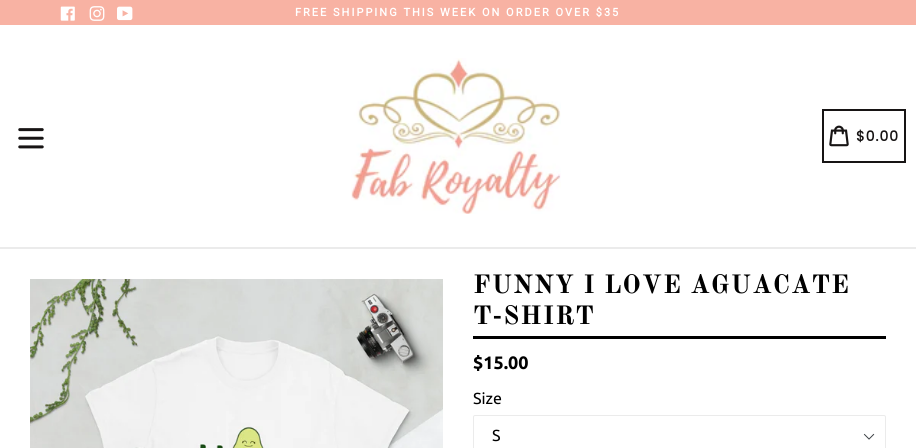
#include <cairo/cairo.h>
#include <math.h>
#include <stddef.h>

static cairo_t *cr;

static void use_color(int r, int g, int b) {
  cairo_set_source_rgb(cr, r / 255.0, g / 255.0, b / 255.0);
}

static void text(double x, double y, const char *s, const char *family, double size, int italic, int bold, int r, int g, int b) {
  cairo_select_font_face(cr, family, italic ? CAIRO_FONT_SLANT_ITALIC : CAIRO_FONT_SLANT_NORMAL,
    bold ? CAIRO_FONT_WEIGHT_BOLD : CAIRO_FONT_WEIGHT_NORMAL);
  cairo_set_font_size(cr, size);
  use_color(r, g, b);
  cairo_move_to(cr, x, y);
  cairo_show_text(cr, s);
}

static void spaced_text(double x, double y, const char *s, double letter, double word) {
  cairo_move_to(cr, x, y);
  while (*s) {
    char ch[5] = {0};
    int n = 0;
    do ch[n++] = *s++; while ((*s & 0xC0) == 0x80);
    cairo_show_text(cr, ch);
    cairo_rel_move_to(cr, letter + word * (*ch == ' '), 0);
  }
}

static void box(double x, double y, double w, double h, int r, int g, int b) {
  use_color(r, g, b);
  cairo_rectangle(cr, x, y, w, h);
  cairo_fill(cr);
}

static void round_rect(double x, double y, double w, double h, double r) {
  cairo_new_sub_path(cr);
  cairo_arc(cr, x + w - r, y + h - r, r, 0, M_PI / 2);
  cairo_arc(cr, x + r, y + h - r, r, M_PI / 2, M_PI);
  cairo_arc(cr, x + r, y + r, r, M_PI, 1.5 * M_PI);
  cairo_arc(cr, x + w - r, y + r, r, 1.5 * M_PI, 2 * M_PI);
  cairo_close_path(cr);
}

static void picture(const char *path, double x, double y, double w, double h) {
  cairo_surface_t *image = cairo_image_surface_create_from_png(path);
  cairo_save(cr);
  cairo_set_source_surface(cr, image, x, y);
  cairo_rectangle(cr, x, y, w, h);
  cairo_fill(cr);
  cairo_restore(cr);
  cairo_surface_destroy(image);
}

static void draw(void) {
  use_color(255, 255, 255);
  cairo_paint(cr);
  box(0, 0, 916, 25, 248, 178, 163);
  picture("img_01.png", 60, 6, 15, 15);
  picture("img_02.png", 89, 6, 16, 15);
  picture("img_03.png", 117, 6, 16, 15);
  box(0, 247, 916, 2, 235, 235, 235);
  picture("img_04.png", 18, 128, 26, 21);
  picture("img_05.png", 351, 58, 210, 156);
  cairo_rectangle(cr, 823, 110, 82, 52);
  use_color(23, 20, 20);
  cairo_stroke(cr);
  picture("img_06.png", 829, 125, 20, 22);
  picture("img_07.png", 30, 279, 413, 169);
  box(473, 336, 413, 3, 0, 0, 0);
  picture("img_08.png", 863, 433, 12, 7);
  round_rect(473.5, 415.5, 412, 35, 1.5);
  use_color(235, 235, 235);
  cairo_set_line_width(cr, 1);
  cairo_stroke(cr);
  cairo_select_font_face(cr, "Roboto", CAIRO_FONT_SLANT_NORMAL, CAIRO_FONT_WEIGHT_BOLD);
  cairo_set_font_size(cr, 11);
  use_color(255, 255, 255);
  spaced_text(295, 16, "FREE SHIPPING THIS WEEK ON ORDER OVER $35", 2, 0);
  cairo_select_font_face(cr, "Poppins", CAIRO_FONT_SLANT_NORMAL, CAIRO_FONT_WEIGHT_BOLD);
  cairo_set_font_size(cr, 14);
  use_color(23, 20, 20);
  spaced_text(856, 141, "$0.00", 1, 0);
  cairo_select_font_face(cr, "Old Standard TT", CAIRO_FONT_SLANT_NORMAL, CAIRO_FONT_WEIGHT_BOLD);
  cairo_set_font_size(cr, 26);
  use_color(0, 0, 0);
  spaced_text(473, 293, "FUNNY I LOVE AGUACATE", 1, 0);
  spaced_text(473, 324, "T-SHIRT", 1, 0);
  text(473, 369, "$15.00", "Ubuntu", 18, 0, 1, 0, 0, 0);
  text(473, 404, "Size", "Ubuntu", 16, 0, 0, 0, 0, 0);
  text(492, 441, "S", "Ubuntu", 16, 0, 0, 0, 0, 0);
}

int main(void) {
  cairo_surface_t *surface = cairo_image_surface_create(CAIRO_FORMAT_RGB24, 916, 448);
  cr = cairo_create(surface);
  cairo_font_options_t *options = cairo_font_options_create();
  cairo_font_options_set_hint_metrics(options, CAIRO_HINT_METRICS_OFF);
  cairo_font_options_set_hint_style(options, CAIRO_HINT_STYLE_NONE);
  cairo_set_font_options(cr, options);
  cairo_set_miter_limit(cr, 4);
  draw();
  cairo_surface_write_to_png(surface, "out.png");
  cairo_font_options_destroy(options);
  cairo_destroy(cr);
  cairo_surface_destroy(surface);
  return 0;
}
